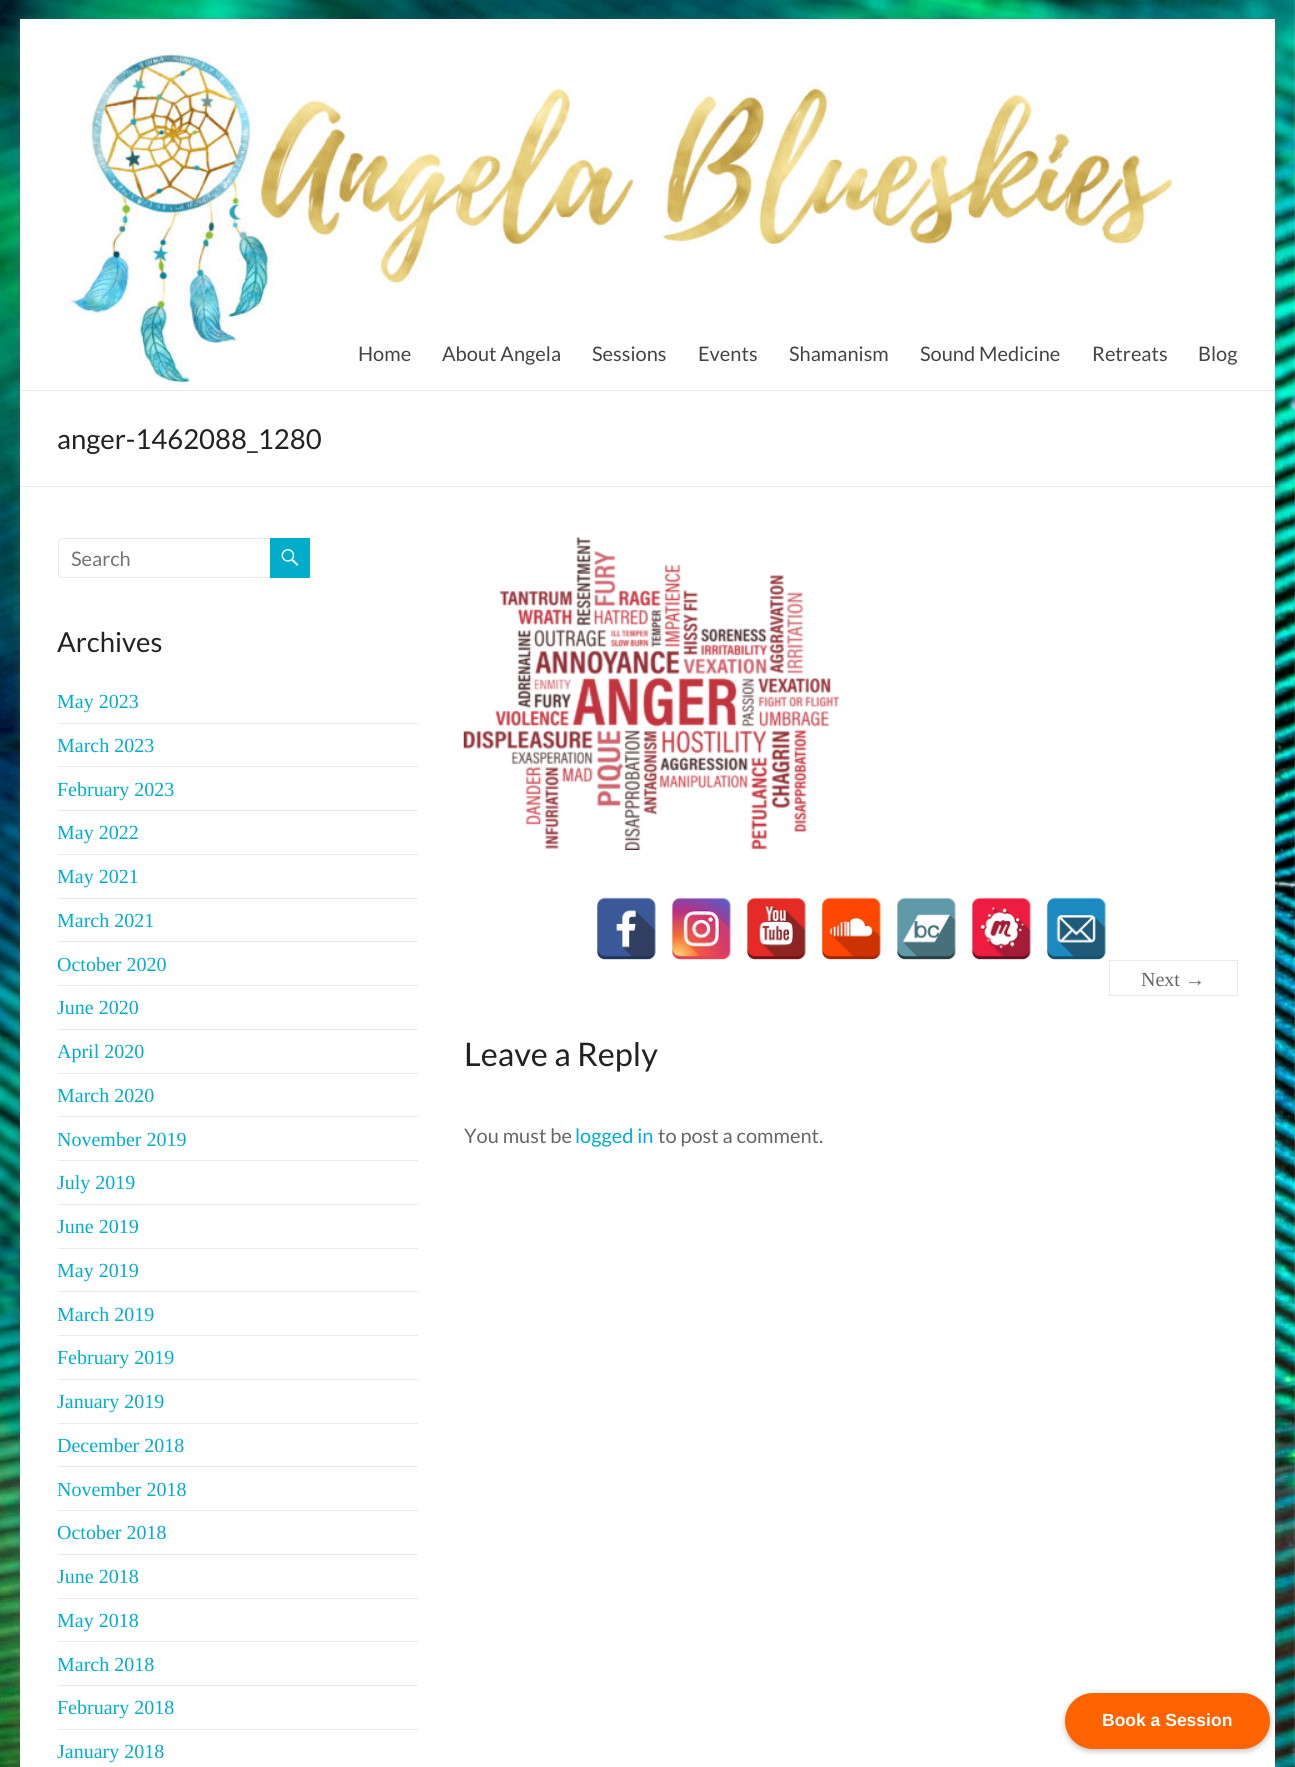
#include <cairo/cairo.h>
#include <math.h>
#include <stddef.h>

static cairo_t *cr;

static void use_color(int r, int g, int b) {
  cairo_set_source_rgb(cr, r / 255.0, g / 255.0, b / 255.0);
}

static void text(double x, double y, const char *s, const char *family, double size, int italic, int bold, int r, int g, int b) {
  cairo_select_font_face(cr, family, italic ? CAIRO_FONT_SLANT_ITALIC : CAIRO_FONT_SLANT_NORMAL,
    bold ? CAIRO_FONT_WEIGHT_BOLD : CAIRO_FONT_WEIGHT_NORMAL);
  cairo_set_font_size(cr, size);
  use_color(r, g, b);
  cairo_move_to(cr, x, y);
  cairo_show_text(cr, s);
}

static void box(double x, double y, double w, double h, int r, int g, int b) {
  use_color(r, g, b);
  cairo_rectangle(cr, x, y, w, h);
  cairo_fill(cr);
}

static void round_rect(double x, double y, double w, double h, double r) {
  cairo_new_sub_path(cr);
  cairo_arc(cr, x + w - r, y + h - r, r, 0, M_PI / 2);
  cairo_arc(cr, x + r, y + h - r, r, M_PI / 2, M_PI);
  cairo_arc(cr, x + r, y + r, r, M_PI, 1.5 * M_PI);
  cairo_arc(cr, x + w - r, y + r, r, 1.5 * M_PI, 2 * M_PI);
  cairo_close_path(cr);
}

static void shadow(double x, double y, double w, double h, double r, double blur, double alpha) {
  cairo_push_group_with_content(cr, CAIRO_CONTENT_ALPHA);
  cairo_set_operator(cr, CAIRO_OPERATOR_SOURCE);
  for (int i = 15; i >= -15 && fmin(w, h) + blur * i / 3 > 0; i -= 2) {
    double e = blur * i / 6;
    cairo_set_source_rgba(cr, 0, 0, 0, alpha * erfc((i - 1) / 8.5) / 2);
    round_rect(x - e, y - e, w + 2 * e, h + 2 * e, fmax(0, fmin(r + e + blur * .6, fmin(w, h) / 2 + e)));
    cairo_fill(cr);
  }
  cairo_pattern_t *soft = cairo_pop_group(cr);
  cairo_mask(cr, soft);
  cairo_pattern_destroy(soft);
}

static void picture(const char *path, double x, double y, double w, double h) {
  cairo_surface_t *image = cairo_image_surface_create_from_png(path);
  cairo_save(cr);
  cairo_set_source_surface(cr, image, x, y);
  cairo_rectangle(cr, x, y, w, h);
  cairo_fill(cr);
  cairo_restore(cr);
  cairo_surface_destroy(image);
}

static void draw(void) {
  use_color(255, 255, 255);
  cairo_paint(cr);
  picture("img_01.png", 0, 0, 1295, 1767);
  use_color(100, 100, 100);
  shadow(20, 21, 1255, 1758, 0, 4, 0.3);
  box(20, 19, 1255, 1748, 255, 255, 255);
  box(20, 390, 1255, 1, 234, 234, 234);
  picture("img_02.png", 66, 49, 1107, 339);
  box(20, 486, 1255, 1, 234, 234, 234);
  round_rect(58.5, 538.5, 214, 39, 3.5);
  cairo_set_line_width(cr, 1);
  cairo_stroke(cr);
  box(270, 538, 40, 40, 2, 173, 204);
  picture("img_03.png", 281, 549, 18, 17);
  box(58, 723, 360, 1, 234, 234, 234);
  box(58, 766, 360, 1, 234, 234, 234);
  box(58, 810, 360, 1, 234, 234, 234);
  box(58, 854, 360, 1, 234, 234, 234);
  box(58, 898, 360, 1, 234, 234, 234);
  box(58, 941, 360, 1, 234, 234, 234);
  box(58, 985, 360, 1, 234, 234, 234);
  box(58, 1029, 360, 1, 234, 234, 234);
  box(58, 1073, 360, 1, 234, 234, 234);
  box(58, 1116, 360, 1, 234, 234, 234);
  box(58, 1160, 360, 1, 234, 234, 234);
  box(58, 1204, 360, 1, 234, 234, 234);
  box(58, 1248, 360, 1, 234, 234, 234);
  box(58, 1291, 360, 1, 234, 234, 234);
  box(58, 1335, 360, 1, 234, 234, 234);
  box(58, 1379, 360, 1, 234, 234, 234);
  box(58, 1423, 360, 1, 234, 234, 234);
  box(58, 1466, 360, 1, 234, 234, 234);
  box(58, 1510, 360, 1, 234, 234, 234);
  box(58, 1554, 360, 1, 234, 234, 234);
  box(58, 1598, 360, 1, 234, 234, 234);
  box(58, 1641, 360, 1, 234, 234, 234);
  box(58, 1685, 360, 1, 234, 234, 234);
  box(58, 1729, 360, 1, 234, 234, 234);
  picture("img_04.png", 463, 537, 376, 313);
  picture("img_05.png", 597, 897, 59, 63);
  picture("img_06.png", 672, 897, 59, 63);
  picture("img_07.png", 747, 897, 59, 63);
  picture("img_08.png", 822, 897, 59, 63);
  picture("img_09.png", 897, 897, 59, 63);
  picture("img_10.png", 972, 897, 59, 63);
  picture("img_11.png", 1047, 897, 59, 63);
  cairo_rectangle(cr, 1109.5, 960.5, 128, 35);
  cairo_stroke(cr);
  use_color(0, 0, 0);
  shadow(1065, 1695, 205, 56, 28, 3, 0.25);
  use_color(255, 99, 0);
  round_rect(1065, 1693, 205, 56, 28);
  cairo_fill(cr);
  text(358, 361, "Home", "Lato", 20, 0, 0, 68, 68, 68);
  text(442, 361, "About Angela", "Lato", 20, 0, 0, 68, 68, 68);
  text(592, 361, "Sessions", "Lato", 20, 0, 0, 68, 68, 68);
  text(698, 361, "Events", "Lato", 20, 0, 0, 68, 68, 68);
  text(789, 361, "Shamanism", "Lato", 20, 0, 0, 68, 68, 68);
  text(920, 361, "Sound Medicine", "Lato", 20, 0, 0, 68, 68, 68);
  text(1092, 361, "Retreats", "Lato", 20, 0, 0, 68, 68, 68);
  text(1198, 361, "Blog", "Lato", 20, 0, 0, 68, 68, 68);
  text(57, 449, "anger-1462088_1280", "Lato", 27.5, 0, 0, 34, 34, 34);
  text(71, 566, "Search", "Lato", 20, 0, 0, 117, 117, 117);
  text(57, 652, "Archives", "Lato", 27.5, 0, 0, 34, 34, 34);
  text(57, 708, "May 2023", "Liberation Serif", 20, 0, 0, 2, 173, 204);
  text(57, 752, "March 2023", "Liberation Serif", 20, 0, 0, 2, 173, 204);
  text(57, 796, "February 2023", "Liberation Serif", 20, 0, 0, 2, 173, 204);
  text(57, 839, "May 2022", "Liberation Serif", 20, 0, 0, 2, 173, 204);
  text(57, 883, "May 2021", "Liberation Serif", 20, 0, 0, 2, 173, 204);
  text(57, 927, "March 2021", "Liberation Serif", 20, 0, 0, 2, 173, 204);
  text(57, 971, "October 2020", "Liberation Serif", 20, 0, 0, 2, 173, 204);
  text(57, 1014, "June 2020", "Liberation Serif", 20, 0, 0, 2, 173, 204);
  text(57, 1058, "April 2020", "Liberation Serif", 20, 0, 0, 2, 173, 204);
  text(57, 1102, "March 2020", "Liberation Serif", 20, 0, 0, 2, 173, 204);
  text(57, 1146, "November 2019", "Liberation Serif", 20, 0, 0, 2, 173, 204);
  text(57, 1189, "July 2019", "Liberation Serif", 20, 0, 0, 2, 173, 204);
  text(57, 1233, "June 2019", "Liberation Serif", 20, 0, 0, 2, 173, 204);
  text(57, 1277, "May 2019", "Liberation Serif", 20, 0, 0, 2, 173, 204);
  text(57, 1321, "March 2019", "Liberation Serif", 20, 0, 0, 2, 173, 204);
  text(57, 1364, "February 2019", "Liberation Serif", 20, 0, 0, 2, 173, 204);
  text(57, 1408, "January 2019", "Liberation Serif", 20, 0, 0, 2, 173, 204);
  text(57, 1452, "December 2018", "Liberation Serif", 20, 0, 0, 2, 173, 204);
  text(57, 1496, "November 2018", "Liberation Serif", 20, 0, 0, 2, 173, 204);
  text(57, 1539, "October 2018", "Liberation Serif", 20, 0, 0, 2, 173, 204);
  text(57, 1583, "June 2018", "Liberation Serif", 20, 0, 0, 2, 173, 204);
  text(57, 1627, "May 2018", "Liberation Serif", 20, 0, 0, 2, 173, 204);
  text(57, 1671, "March 2018", "Liberation Serif", 20, 0, 0, 2, 173, 204);
  text(57, 1714, "February 2018", "Liberation Serif", 20, 0, 0, 2, 173, 204);
  text(57, 1758, "January 2018", "Liberation Serif", 20, 0, 0, 2, 173, 204);
  text(1141, 986, "Next →", "Liberation Serif", 20, 0, 0, 102, 102, 102);
  text(464, 1066, "Leave a Reply", "Lato", 32.5, 0, 0, 34, 34, 34);
  text(464, 1143, "You must be", "Lato", 20, 0, 0, 102, 102, 102);
  text(575, 1143, "logged in", "Lato", 20, 0, 0, 2, 173, 204);
  text(658, 1143, "to post a comment.", "Lato", 20, 0, 0, 102, 102, 102);
  text(1102, 1726, "Book a Session", "Liberation Sans", 17.5, 0, 1, 255, 255, 255);
}

int main(void) {
  cairo_surface_t *surface = cairo_image_surface_create(CAIRO_FORMAT_RGB24, 1295, 1767);
  cr = cairo_create(surface);
  cairo_font_options_t *options = cairo_font_options_create();
  cairo_font_options_set_hint_metrics(options, CAIRO_HINT_METRICS_OFF);
  cairo_font_options_set_hint_style(options, CAIRO_HINT_STYLE_NONE);
  cairo_set_font_options(cr, options);
  cairo_set_miter_limit(cr, 4);
  draw();
  cairo_surface_write_to_png(surface, "out.png");
  cairo_font_options_destroy(options);
  cairo_destroy(cr);
  cairo_surface_destroy(surface);
  return 0;
}
